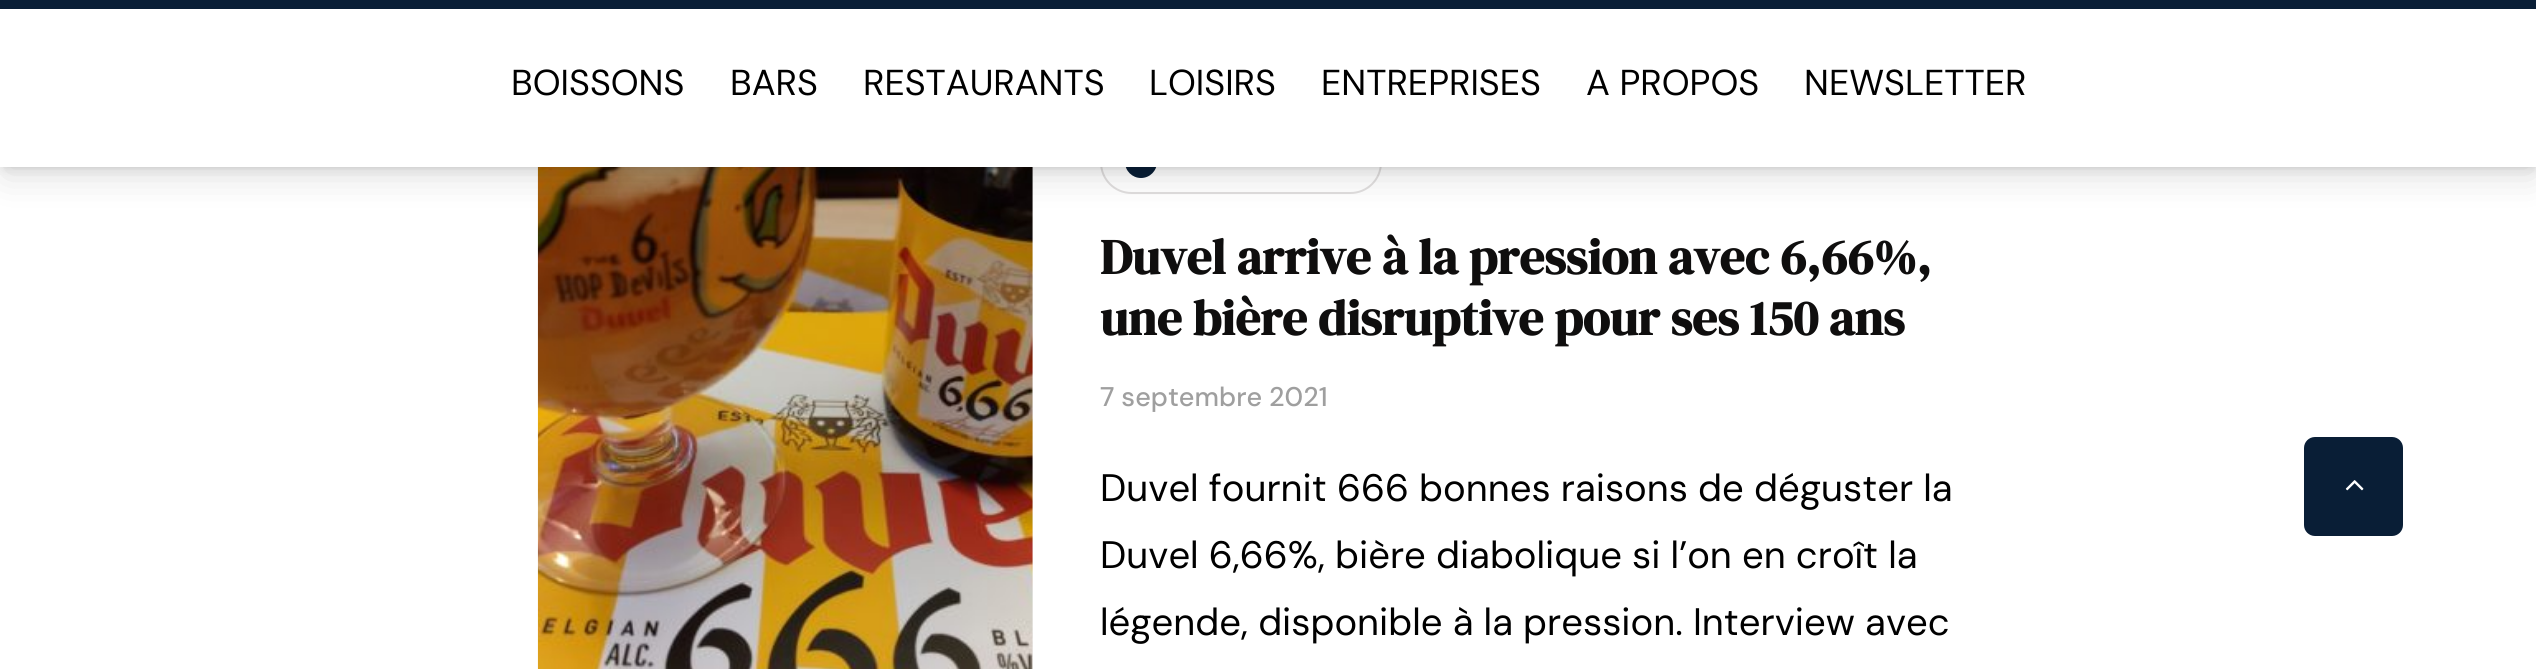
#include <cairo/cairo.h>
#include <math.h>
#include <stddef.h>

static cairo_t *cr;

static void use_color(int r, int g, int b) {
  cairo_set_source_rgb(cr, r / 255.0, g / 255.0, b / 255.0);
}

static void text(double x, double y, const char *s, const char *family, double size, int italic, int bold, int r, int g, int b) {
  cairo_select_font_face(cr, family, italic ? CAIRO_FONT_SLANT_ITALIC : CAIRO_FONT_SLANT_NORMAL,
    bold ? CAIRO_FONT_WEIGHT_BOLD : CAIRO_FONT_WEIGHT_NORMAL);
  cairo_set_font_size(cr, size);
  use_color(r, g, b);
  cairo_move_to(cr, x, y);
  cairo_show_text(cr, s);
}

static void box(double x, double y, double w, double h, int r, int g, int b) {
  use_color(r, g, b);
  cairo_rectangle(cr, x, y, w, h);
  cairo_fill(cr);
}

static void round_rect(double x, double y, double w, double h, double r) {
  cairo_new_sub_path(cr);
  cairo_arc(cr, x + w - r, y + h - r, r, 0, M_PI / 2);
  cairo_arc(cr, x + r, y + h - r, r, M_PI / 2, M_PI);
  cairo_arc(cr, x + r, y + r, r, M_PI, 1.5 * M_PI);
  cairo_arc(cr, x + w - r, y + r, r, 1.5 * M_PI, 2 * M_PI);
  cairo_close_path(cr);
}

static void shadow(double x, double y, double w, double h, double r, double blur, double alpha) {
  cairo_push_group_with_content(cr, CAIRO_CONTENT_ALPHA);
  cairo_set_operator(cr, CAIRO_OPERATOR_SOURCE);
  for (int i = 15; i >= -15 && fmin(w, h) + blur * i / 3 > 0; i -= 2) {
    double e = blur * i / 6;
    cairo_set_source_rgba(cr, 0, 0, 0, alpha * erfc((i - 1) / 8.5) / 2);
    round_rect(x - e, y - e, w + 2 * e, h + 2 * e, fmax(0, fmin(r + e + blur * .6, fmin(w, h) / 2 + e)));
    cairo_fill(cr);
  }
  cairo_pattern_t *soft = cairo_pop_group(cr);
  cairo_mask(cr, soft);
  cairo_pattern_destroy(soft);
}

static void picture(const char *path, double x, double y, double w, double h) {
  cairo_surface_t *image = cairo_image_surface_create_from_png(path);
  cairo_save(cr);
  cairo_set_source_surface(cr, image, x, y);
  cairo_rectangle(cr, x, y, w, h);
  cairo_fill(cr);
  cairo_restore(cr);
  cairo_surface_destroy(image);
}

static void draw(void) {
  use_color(255, 255, 255);
  cairo_paint(cr);
  box(1032, 167, 1, 502, 245, 245, 245);
  picture("img_01.png", 537, 167, 496, 502);
  round_rect(1101, 132, 280, 61, 30.5);
  use_color(224, 222, 222);
  cairo_stroke(cr);
  use_color(9, 30, 54);
  cairo_arc(cr, 1141, 162, 16, 0, 2 * M_PI);
  cairo_fill(cr);
  use_color(0, 0, 0);
  shadow(5, 16, 2529, 157, 0, 19, 0.15);
  shadow(5, 9, 2529, 158, 0, 5.5, 0.15);
  box(0, 9, 2536, 158, 255, 255, 255);
  box(0, 0, 2536, 9, 9, 30, 54);
  round_rect(2305, 438, 97, 97, 10);
  cairo_fill_preserve(cr);
  cairo_stroke(cr);
  picture("img_02.png", 2345, 480, 19, 11);
  text(511, 95, "BOISSONS", "DM Sans", 36, 0, 0, 0, 0, 0);
  text(730, 95, "BARS", "DM Sans", 36, 0, 0, 0, 0, 0);
  text(863, 95, "RESTAURANTS", "DM Sans", 36, 0, 0, 0, 0, 0);
  text(1149, 95, "LOISIRS", "DM Sans", 36, 0, 0, 0, 0, 0);
  text(1321, 95, "ENTREPRISES", "DM Sans", 36, 0, 0, 0, 0, 0);
  text(1586, 95, "A PROPOS", "DM Sans", 36, 0, 0, 0, 0, 0);
  text(1804, 95, "NEWSLETTER", "DM Sans", 36, 0, 0, 0, 0, 0);
  text(1100, 274, "Duvel arrive à la pression avec 6,66%,", "DM Serif Display", 49.5, 0, 1, 15, 14, 14);
  text(1100, 335, "une bière disruptive pour ses 150 ans", "DM Serif Display", 49.5, 0, 1, 15, 14, 14);
  text(1100, 406, "7 septembre 2021", "DM Sans Medium", 27, 0, 0, 159, 159, 159);
  text(1100, 501, "Duvel fournit 666 bonnes raisons de déguster la", "DM Sans", 38.25, 0, 0, 0, 0, 0);
  text(1100, 568, "Duvel 6,66%, bière diabolique si l’on en croît la", "DM Sans", 38.25, 0, 0, 0, 0, 0);
  text(1100, 635, "légende, disponible à la pression. Interview avec", "DM Sans", 38.25, 0, 0, 0, 0, 0);
}

int main(void) {
  cairo_surface_t *surface = cairo_image_surface_create(CAIRO_FORMAT_RGB24, 2536, 669);
  cr = cairo_create(surface);
  cairo_font_options_t *options = cairo_font_options_create();
  cairo_font_options_set_hint_metrics(options, CAIRO_HINT_METRICS_OFF);
  cairo_font_options_set_hint_style(options, CAIRO_HINT_STYLE_NONE);
  cairo_set_font_options(cr, options);
  cairo_set_miter_limit(cr, 4);
  draw();
  cairo_surface_write_to_png(surface, "out.png");
  cairo_font_options_destroy(options);
  cairo_destroy(cr);
  cairo_surface_destroy(surface);
  return 0;
}
